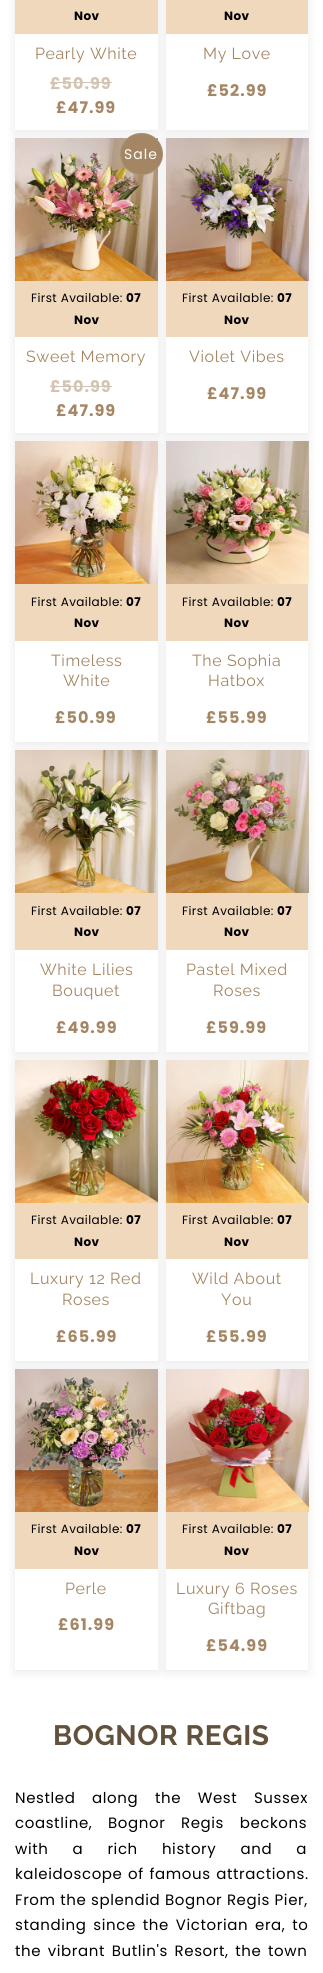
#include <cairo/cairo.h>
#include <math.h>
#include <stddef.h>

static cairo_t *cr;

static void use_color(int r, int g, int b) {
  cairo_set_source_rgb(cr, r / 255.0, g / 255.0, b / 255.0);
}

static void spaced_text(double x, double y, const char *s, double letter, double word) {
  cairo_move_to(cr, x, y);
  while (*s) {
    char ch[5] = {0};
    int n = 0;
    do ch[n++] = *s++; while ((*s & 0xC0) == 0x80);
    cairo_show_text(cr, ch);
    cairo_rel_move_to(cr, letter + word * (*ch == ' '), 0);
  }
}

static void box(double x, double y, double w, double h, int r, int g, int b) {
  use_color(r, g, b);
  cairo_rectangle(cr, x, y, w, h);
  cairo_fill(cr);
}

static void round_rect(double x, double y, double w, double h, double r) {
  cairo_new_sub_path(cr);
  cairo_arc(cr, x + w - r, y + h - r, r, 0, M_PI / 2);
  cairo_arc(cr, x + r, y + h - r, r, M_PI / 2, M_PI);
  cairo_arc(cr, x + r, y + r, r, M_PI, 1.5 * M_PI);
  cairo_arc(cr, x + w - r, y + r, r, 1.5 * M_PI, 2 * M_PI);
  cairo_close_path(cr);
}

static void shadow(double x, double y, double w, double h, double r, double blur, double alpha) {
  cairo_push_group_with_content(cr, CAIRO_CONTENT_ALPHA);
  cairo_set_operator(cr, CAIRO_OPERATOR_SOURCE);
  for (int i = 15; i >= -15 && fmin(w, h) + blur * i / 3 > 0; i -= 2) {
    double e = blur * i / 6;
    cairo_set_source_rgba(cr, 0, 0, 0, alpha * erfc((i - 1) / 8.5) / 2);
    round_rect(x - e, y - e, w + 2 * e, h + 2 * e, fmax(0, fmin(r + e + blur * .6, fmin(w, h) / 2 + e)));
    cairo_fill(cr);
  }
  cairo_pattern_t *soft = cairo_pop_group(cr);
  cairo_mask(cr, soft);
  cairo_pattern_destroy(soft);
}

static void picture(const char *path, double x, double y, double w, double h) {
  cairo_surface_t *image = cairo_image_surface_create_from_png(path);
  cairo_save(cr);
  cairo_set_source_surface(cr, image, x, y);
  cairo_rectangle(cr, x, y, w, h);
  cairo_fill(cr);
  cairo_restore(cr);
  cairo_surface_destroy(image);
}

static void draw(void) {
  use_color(255, 255, 255);
  cairo_paint(cr);
  cairo_save(cr);
  cairo_set_fill_rule(cr, CAIRO_FILL_RULE_EVEN_ODD);
  cairo_new_path(cr);
  cairo_move_to(cr, 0, 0);
  cairo_line_to(cr, 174, 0);
  cairo_line_to(cr, 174, 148);
  cairo_line_to(cr, 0, 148);
  cairo_close_path(cr);
  cairo_move_to(cr, 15, -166);
  cairo_line_to(cr, 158, -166);
  cairo_line_to(cr, 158, 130);
  cairo_line_to(cr, 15, 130);
  cairo_close_path(cr);
  cairo_clip(cr);
  use_color(18, 18, 18);
  shadow(15, -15, 143, 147, 0, 5, 0.1);
  cairo_restore(cr);
  box(15, 0, 143, 34, 240, 216, 189);
  box(50, 82, 62, 1, 210, 195, 178);
  cairo_save(cr);
  cairo_set_fill_rule(cr, CAIRO_FILL_RULE_EVEN_ODD);
  cairo_new_path(cr);
  cairo_move_to(cr, 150, 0);
  cairo_line_to(cr, 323, 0);
  cairo_line_to(cr, 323, 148);
  cairo_line_to(cr, 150, 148);
  cairo_close_path(cr);
  cairo_move_to(cr, 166, -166);
  cairo_line_to(cr, 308, -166);
  cairo_line_to(cr, 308, 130);
  cairo_line_to(cr, 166, 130);
  cairo_close_path(cr);
  cairo_clip(cr);
  use_color(18, 18, 18);
  shadow(166, -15, 142, 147, 0, 5, 0.1);
  cairo_restore(cr);
  box(166, 0, 142, 34, 240, 216, 189);
  cairo_save(cr);
  cairo_set_fill_rule(cr, CAIRO_FILL_RULE_EVEN_ODD);
  cairo_new_path(cr);
  cairo_move_to(cr, 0, 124);
  cairo_line_to(cr, 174, 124);
  cairo_line_to(cr, 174, 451);
  cairo_line_to(cr, 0, 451);
  cairo_close_path(cr);
  cairo_move_to(cr, 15, 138);
  cairo_line_to(cr, 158, 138);
  cairo_line_to(cr, 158, 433);
  cairo_line_to(cr, 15, 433);
  cairo_close_path(cr);
  cairo_clip(cr);
  use_color(18, 18, 18);
  shadow(15, 140, 143, 295, 0, 5, 0.1);
  cairo_restore(cr);
  picture("img_01.png", 15, 138, 143, 143);
  use_color(164, 134, 100);
  round_rect(120, 133, 43, 42, 21);
  cairo_fill(cr);
  round_rect(120.5, 133.5, 42, 41, 20.5);
  cairo_set_source_rgba(cr, 1, 1, 1, 0.1);
  cairo_set_line_width(cr, 1);
  cairo_stroke(cr);
  box(15, 281, 143, 56, 240, 216, 189);
  box(50, 386, 62, 1, 210, 195, 178);
  cairo_save(cr);
  cairo_set_fill_rule(cr, CAIRO_FILL_RULE_EVEN_ODD);
  cairo_new_path(cr);
  cairo_move_to(cr, 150, 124);
  cairo_line_to(cr, 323, 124);
  cairo_line_to(cr, 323, 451);
  cairo_line_to(cr, 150, 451);
  cairo_close_path(cr);
  cairo_move_to(cr, 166, 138);
  cairo_line_to(cr, 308, 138);
  cairo_line_to(cr, 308, 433);
  cairo_line_to(cr, 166, 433);
  cairo_close_path(cr);
  cairo_clip(cr);
  use_color(18, 18, 18);
  shadow(166, 140, 142, 295, 0, 5, 0.1);
  cairo_restore(cr);
  picture("img_02.png", 166, 138, 143, 143);
  box(166, 281, 142, 56, 240, 216, 189);
  cairo_save(cr);
  cairo_set_fill_rule(cr, CAIRO_FILL_RULE_EVEN_ODD);
  cairo_new_path(cr);
  cairo_move_to(cr, 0, 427);
  cairo_line_to(cr, 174, 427);
  cairo_line_to(cr, 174, 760);
  cairo_line_to(cr, 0, 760);
  cairo_close_path(cr);
  cairo_move_to(cr, 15, 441);
  cairo_line_to(cr, 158, 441);
  cairo_line_to(cr, 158, 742);
  cairo_line_to(cr, 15, 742);
  cairo_close_path(cr);
  cairo_clip(cr);
  use_color(18, 18, 18);
  shadow(15, 443, 143, 301, 0, 5, 0.1);
  cairo_restore(cr);
  picture("img_03.png", 15, 441, 143, 143);
  box(15, 584, 143, 57, 240, 216, 189);
  cairo_save(cr);
  cairo_set_fill_rule(cr, CAIRO_FILL_RULE_EVEN_ODD);
  cairo_new_path(cr);
  cairo_move_to(cr, 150, 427);
  cairo_line_to(cr, 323, 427);
  cairo_line_to(cr, 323, 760);
  cairo_line_to(cr, 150, 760);
  cairo_close_path(cr);
  cairo_move_to(cr, 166, 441);
  cairo_line_to(cr, 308, 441);
  cairo_line_to(cr, 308, 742);
  cairo_line_to(cr, 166, 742);
  cairo_close_path(cr);
  cairo_clip(cr);
  use_color(18, 18, 18);
  shadow(166, 443, 142, 301, 0, 5, 0.1);
  cairo_restore(cr);
  picture("img_04.png", 166, 441, 143, 143);
  box(166, 584, 142, 57, 240, 216, 189);
  cairo_save(cr);
  cairo_set_fill_rule(cr, CAIRO_FILL_RULE_EVEN_ODD);
  cairo_new_path(cr);
  cairo_move_to(cr, 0, 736);
  cairo_line_to(cr, 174, 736);
  cairo_line_to(cr, 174, 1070);
  cairo_line_to(cr, 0, 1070);
  cairo_close_path(cr);
  cairo_move_to(cr, 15, 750);
  cairo_line_to(cr, 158, 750);
  cairo_line_to(cr, 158, 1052);
  cairo_line_to(cr, 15, 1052);
  cairo_close_path(cr);
  cairo_clip(cr);
  use_color(18, 18, 18);
  shadow(15, 752, 143, 302, 0, 5, 0.1);
  cairo_restore(cr);
  picture("img_05.png", 15, 750, 143, 143);
  box(15, 893, 143, 57, 240, 216, 189);
  cairo_save(cr);
  cairo_set_fill_rule(cr, CAIRO_FILL_RULE_EVEN_ODD);
  cairo_new_path(cr);
  cairo_move_to(cr, 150, 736);
  cairo_line_to(cr, 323, 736);
  cairo_line_to(cr, 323, 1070);
  cairo_line_to(cr, 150, 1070);
  cairo_close_path(cr);
  cairo_move_to(cr, 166, 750);
  cairo_line_to(cr, 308, 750);
  cairo_line_to(cr, 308, 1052);
  cairo_line_to(cr, 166, 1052);
  cairo_close_path(cr);
  cairo_clip(cr);
  use_color(18, 18, 18);
  shadow(166, 752, 142, 302, 0, 5, 0.1);
  cairo_restore(cr);
  picture("img_06.png", 166, 750, 143, 143);
  box(166, 893, 142, 57, 240, 216, 189);
  cairo_save(cr);
  cairo_set_fill_rule(cr, CAIRO_FILL_RULE_EVEN_ODD);
  cairo_new_path(cr);
  cairo_move_to(cr, 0, 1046);
  cairo_line_to(cr, 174, 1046);
  cairo_line_to(cr, 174, 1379);
  cairo_line_to(cr, 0, 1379);
  cairo_close_path(cr);
  cairo_move_to(cr, 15, 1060);
  cairo_line_to(cr, 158, 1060);
  cairo_line_to(cr, 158, 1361);
  cairo_line_to(cr, 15, 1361);
  cairo_close_path(cr);
  cairo_clip(cr);
  use_color(18, 18, 18);
  shadow(15, 1062, 143, 301, 0, 5, 0.1);
  cairo_restore(cr);
  picture("img_07.png", 15, 1060, 143, 143);
  box(15, 1203, 143, 56, 240, 216, 189);
  cairo_save(cr);
  cairo_set_fill_rule(cr, CAIRO_FILL_RULE_EVEN_ODD);
  cairo_new_path(cr);
  cairo_move_to(cr, 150, 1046);
  cairo_line_to(cr, 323, 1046);
  cairo_line_to(cr, 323, 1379);
  cairo_line_to(cr, 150, 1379);
  cairo_close_path(cr);
  cairo_move_to(cr, 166, 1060);
  cairo_line_to(cr, 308, 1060);
  cairo_line_to(cr, 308, 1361);
  cairo_line_to(cr, 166, 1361);
  cairo_close_path(cr);
  cairo_clip(cr);
  use_color(18, 18, 18);
  shadow(166, 1062, 142, 301, 0, 5, 0.1);
  cairo_restore(cr);
  picture("img_08.png", 166, 1060, 143, 143);
  box(166, 1203, 142, 56, 240, 216, 189);
  cairo_save(cr);
  cairo_set_fill_rule(cr, CAIRO_FILL_RULE_EVEN_ODD);
  cairo_new_path(cr);
  cairo_move_to(cr, 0, 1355);
  cairo_line_to(cr, 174, 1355);
  cairo_line_to(cr, 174, 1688);
  cairo_line_to(cr, 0, 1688);
  cairo_close_path(cr);
  cairo_move_to(cr, 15, 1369);
  cairo_line_to(cr, 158, 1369);
  cairo_line_to(cr, 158, 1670);
  cairo_line_to(cr, 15, 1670);
  cairo_close_path(cr);
  cairo_clip(cr);
  use_color(18, 18, 18);
  shadow(15, 1371, 143, 301, 0, 5, 0.1);
  cairo_restore(cr);
  picture("img_09.png", 15, 1369, 143, 143);
  box(15, 1512, 143, 57, 240, 216, 189);
  cairo_save(cr);
  cairo_set_fill_rule(cr, CAIRO_FILL_RULE_EVEN_ODD);
  cairo_new_path(cr);
  cairo_move_to(cr, 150, 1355);
  cairo_line_to(cr, 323, 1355);
  cairo_line_to(cr, 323, 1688);
  cairo_line_to(cr, 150, 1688);
  cairo_close_path(cr);
  cairo_move_to(cr, 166, 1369);
  cairo_line_to(cr, 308, 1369);
  cairo_line_to(cr, 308, 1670);
  cairo_line_to(cr, 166, 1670);
  cairo_close_path(cr);
  cairo_clip(cr);
  use_color(18, 18, 18);
  shadow(166, 1371, 142, 301, 0, 5, 0.1);
  cairo_restore(cr);
  picture("img_10.png", 166, 1369, 143, 143);
  box(166, 1512, 142, 57, 240, 216, 189);
  cairo_select_font_face(cr, "Poppins", CAIRO_FONT_SLANT_NORMAL, CAIRO_FONT_WEIGHT_BOLD);
  cairo_set_font_size(cr, 12);
  use_color(0, 0, 0);
  spaced_text(74, 20, "Nov", 0.4, 0);
  cairo_select_font_face(cr, "Raleway", CAIRO_FONT_SLANT_NORMAL, CAIRO_FONT_WEIGHT_NORMAL);
  cairo_set_font_size(cr, 16);
  use_color(164, 134, 100);
  spaced_text(35, 59, "Pearly White", 0.6, 0);
  cairo_select_font_face(cr, "Poppins", CAIRO_FONT_SLANT_NORMAL, CAIRO_FONT_WEIGHT_BOLD);
  use_color(210, 195, 178);
  spaced_text(50, 89, "£50.99", 1, 0);
  use_color(164, 134, 100);
  spaced_text(56, 113, "£47.99", 1, 0);
  cairo_set_font_size(cr, 12);
  use_color(0, 0, 0);
  spaced_text(224, 20, "Nov", 0.4, 0);
  cairo_select_font_face(cr, "Raleway", CAIRO_FONT_SLANT_NORMAL, CAIRO_FONT_WEIGHT_NORMAL);
  cairo_set_font_size(cr, 16);
  use_color(164, 134, 100);
  spaced_text(203, 59, "My Love", 0.6, 0);
  cairo_select_font_face(cr, "Poppins", CAIRO_FONT_SLANT_NORMAL, CAIRO_FONT_WEIGHT_BOLD);
  spaced_text(207, 96, "£52.99", 1, 0);
  cairo_select_font_face(cr, "Poppins", CAIRO_FONT_SLANT_NORMAL, CAIRO_FONT_WEIGHT_NORMAL);
  cairo_set_font_size(cr, 14);
  use_color(255, 255, 255);
  spaced_text(124, 159, "Sale", 1, 0);
  cairo_set_font_size(cr, 12);
  use_color(0, 0, 0);
  spaced_text(31, 302, "First Available:", 0.4, 0);
  cairo_select_font_face(cr, "Poppins", CAIRO_FONT_SLANT_NORMAL, CAIRO_FONT_WEIGHT_BOLD);
  spaced_text(126, 302, "07", 0.4, 0);
  spaced_text(74, 324, "Nov", 0.4, 0);
  cairo_select_font_face(cr, "Raleway", CAIRO_FONT_SLANT_NORMAL, CAIRO_FONT_WEIGHT_NORMAL);
  cairo_set_font_size(cr, 16);
  use_color(164, 134, 100);
  spaced_text(26, 362, "Sweet Memory", 0.6, 0);
  cairo_select_font_face(cr, "Poppins", CAIRO_FONT_SLANT_NORMAL, CAIRO_FONT_WEIGHT_BOLD);
  use_color(210, 195, 178);
  spaced_text(50, 392, "£50.99", 1, 0);
  use_color(164, 134, 100);
  spaced_text(56, 416, "£47.99", 1, 0);
  cairo_select_font_face(cr, "Poppins", CAIRO_FONT_SLANT_NORMAL, CAIRO_FONT_WEIGHT_NORMAL);
  cairo_set_font_size(cr, 12);
  use_color(0, 0, 0);
  spaced_text(182, 302, "First Available:", 0.4, 0);
  cairo_select_font_face(cr, "Poppins", CAIRO_FONT_SLANT_NORMAL, CAIRO_FONT_WEIGHT_BOLD);
  spaced_text(277, 302, "07", 0.4, 0);
  spaced_text(224, 324, "Nov", 0.4, 0);
  cairo_select_font_face(cr, "Raleway", CAIRO_FONT_SLANT_NORMAL, CAIRO_FONT_WEIGHT_NORMAL);
  cairo_set_font_size(cr, 16);
  use_color(164, 134, 100);
  spaced_text(189, 362, "Violet Vibes", 0.6, 0);
  cairo_select_font_face(cr, "Poppins", CAIRO_FONT_SLANT_NORMAL, CAIRO_FONT_WEIGHT_BOLD);
  spaced_text(207, 399, "£47.99", 1, 0);
  cairo_select_font_face(cr, "Poppins", CAIRO_FONT_SLANT_NORMAL, CAIRO_FONT_WEIGHT_NORMAL);
  cairo_set_font_size(cr, 12);
  use_color(0, 0, 0);
  spaced_text(31, 606, "First Available:", 0.4, 0);
  cairo_select_font_face(cr, "Poppins", CAIRO_FONT_SLANT_NORMAL, CAIRO_FONT_WEIGHT_BOLD);
  spaced_text(126, 606, "07", 0.4, 0);
  spaced_text(74, 627, "Nov", 0.4, 0);
  cairo_select_font_face(cr, "Raleway", CAIRO_FONT_SLANT_NORMAL, CAIRO_FONT_WEIGHT_NORMAL);
  cairo_set_font_size(cr, 16);
  use_color(164, 134, 100);
  spaced_text(51, 666, "Timeless", 0.6, 0);
  spaced_text(63, 686, "White", 0.6, 0);
  cairo_select_font_face(cr, "Poppins", CAIRO_FONT_SLANT_NORMAL, CAIRO_FONT_WEIGHT_BOLD);
  spaced_text(55, 723, "£50.99", 1, 0);
  cairo_select_font_face(cr, "Poppins", CAIRO_FONT_SLANT_NORMAL, CAIRO_FONT_WEIGHT_NORMAL);
  cairo_set_font_size(cr, 12);
  use_color(0, 0, 0);
  spaced_text(182, 606, "First Available:", 0.4, 0);
  cairo_select_font_face(cr, "Poppins", CAIRO_FONT_SLANT_NORMAL, CAIRO_FONT_WEIGHT_BOLD);
  spaced_text(277, 606, "07", 0.4, 0);
  spaced_text(224, 627, "Nov", 0.4, 0);
  cairo_select_font_face(cr, "Raleway", CAIRO_FONT_SLANT_NORMAL, CAIRO_FONT_WEIGHT_NORMAL);
  cairo_set_font_size(cr, 16);
  use_color(164, 134, 100);
  spaced_text(192, 666, "The Sophia", 0.6, 0);
  spaced_text(208, 686, "Hatbox", 0.6, 0);
  cairo_select_font_face(cr, "Poppins", CAIRO_FONT_SLANT_NORMAL, CAIRO_FONT_WEIGHT_BOLD);
  spaced_text(206, 723, "£55.99", 1, 0);
  cairo_select_font_face(cr, "Poppins", CAIRO_FONT_SLANT_NORMAL, CAIRO_FONT_WEIGHT_NORMAL);
  cairo_set_font_size(cr, 12);
  use_color(0, 0, 0);
  spaced_text(31, 915, "First Available:", 0.4, 0);
  cairo_select_font_face(cr, "Poppins", CAIRO_FONT_SLANT_NORMAL, CAIRO_FONT_WEIGHT_BOLD);
  spaced_text(126, 915, "07", 0.4, 0);
  spaced_text(74, 936, "Nov", 0.4, 0);
  cairo_select_font_face(cr, "Raleway", CAIRO_FONT_SLANT_NORMAL, CAIRO_FONT_WEIGHT_NORMAL);
  cairo_set_font_size(cr, 16);
  use_color(164, 134, 100);
  spaced_text(40, 975, "White Lilies", 0.6, 0);
  spaced_text(52, 996, "Bouquet", 0.6, 0);
  cairo_select_font_face(cr, "Poppins", CAIRO_FONT_SLANT_NORMAL, CAIRO_FONT_WEIGHT_BOLD);
  spaced_text(56, 1033, "£49.99", 1, 0);
  cairo_select_font_face(cr, "Poppins", CAIRO_FONT_SLANT_NORMAL, CAIRO_FONT_WEIGHT_NORMAL);
  cairo_set_font_size(cr, 12);
  use_color(0, 0, 0);
  spaced_text(182, 915, "First Available:", 0.4, 0);
  cairo_select_font_face(cr, "Poppins", CAIRO_FONT_SLANT_NORMAL, CAIRO_FONT_WEIGHT_BOLD);
  spaced_text(277, 915, "07", 0.4, 0);
  spaced_text(224, 936, "Nov", 0.4, 0);
  cairo_select_font_face(cr, "Raleway", CAIRO_FONT_SLANT_NORMAL, CAIRO_FONT_WEIGHT_NORMAL);
  cairo_set_font_size(cr, 16);
  use_color(164, 134, 100);
  spaced_text(186, 975, "Pastel Mixed", 0.6, 0);
  spaced_text(213, 996, "Roses", 0.6, 0);
  cairo_select_font_face(cr, "Poppins", CAIRO_FONT_SLANT_NORMAL, CAIRO_FONT_WEIGHT_BOLD);
  spaced_text(206, 1033, "£59.99", 1, 0);
  cairo_select_font_face(cr, "Poppins", CAIRO_FONT_SLANT_NORMAL, CAIRO_FONT_WEIGHT_NORMAL);
  cairo_set_font_size(cr, 12);
  use_color(0, 0, 0);
  spaced_text(31, 1224, "First Available:", 0.4, 0);
  cairo_select_font_face(cr, "Poppins", CAIRO_FONT_SLANT_NORMAL, CAIRO_FONT_WEIGHT_BOLD);
  spaced_text(126, 1224, "07", 0.4, 0);
  spaced_text(74, 1246, "Nov", 0.4, 0);
  cairo_select_font_face(cr, "Raleway", CAIRO_FONT_SLANT_NORMAL, CAIRO_FONT_WEIGHT_NORMAL);
  cairo_set_font_size(cr, 16);
  use_color(164, 134, 100);
  spaced_text(30, 1284, "Luxury 12 Red", 0.6, 0);
  spaced_text(62, 1305, "Roses", 0.6, 0);
  cairo_select_font_face(cr, "Poppins", CAIRO_FONT_SLANT_NORMAL, CAIRO_FONT_WEIGHT_BOLD);
  spaced_text(56, 1342, "£65.99", 1, 0);
  cairo_select_font_face(cr, "Poppins", CAIRO_FONT_SLANT_NORMAL, CAIRO_FONT_WEIGHT_NORMAL);
  cairo_set_font_size(cr, 12);
  use_color(0, 0, 0);
  spaced_text(182, 1224, "First Available:", 0.4, 0);
  cairo_select_font_face(cr, "Poppins", CAIRO_FONT_SLANT_NORMAL, CAIRO_FONT_WEIGHT_BOLD);
  spaced_text(277, 1224, "07", 0.4, 0);
  spaced_text(224, 1246, "Nov", 0.4, 0);
  cairo_select_font_face(cr, "Raleway", CAIRO_FONT_SLANT_NORMAL, CAIRO_FONT_WEIGHT_NORMAL);
  cairo_set_font_size(cr, 16);
  use_color(164, 134, 100);
  spaced_text(192, 1284, "Wild About", 0.6, 0);
  spaced_text(221, 1305, "You", 0.6, 0);
  cairo_select_font_face(cr, "Poppins", CAIRO_FONT_SLANT_NORMAL, CAIRO_FONT_WEIGHT_BOLD);
  spaced_text(206, 1342, "£55.99", 1, 0);
  cairo_select_font_face(cr, "Poppins", CAIRO_FONT_SLANT_NORMAL, CAIRO_FONT_WEIGHT_NORMAL);
  cairo_set_font_size(cr, 12);
  use_color(0, 0, 0);
  spaced_text(31, 1533, "First Available:", 0.4, 0);
  cairo_select_font_face(cr, "Poppins", CAIRO_FONT_SLANT_NORMAL, CAIRO_FONT_WEIGHT_BOLD);
  spaced_text(126, 1533, "07", 0.4, 0);
  spaced_text(74, 1555, "Nov", 0.4, 0);
  cairo_select_font_face(cr, "Raleway", CAIRO_FONT_SLANT_NORMAL, CAIRO_FONT_WEIGHT_NORMAL);
  cairo_set_font_size(cr, 16);
  use_color(164, 134, 100);
  spaced_text(65, 1594, "Perle", 0.6, 0);
  cairo_select_font_face(cr, "Poppins", CAIRO_FONT_SLANT_NORMAL, CAIRO_FONT_WEIGHT_BOLD);
  spaced_text(58, 1630, "£61.99", 1, 0);
  cairo_select_font_face(cr, "Poppins", CAIRO_FONT_SLANT_NORMAL, CAIRO_FONT_WEIGHT_NORMAL);
  cairo_set_font_size(cr, 12);
  use_color(0, 0, 0);
  spaced_text(182, 1533, "First Available:", 0.4, 0);
  cairo_select_font_face(cr, "Poppins", CAIRO_FONT_SLANT_NORMAL, CAIRO_FONT_WEIGHT_BOLD);
  spaced_text(277, 1533, "07", 0.4, 0);
  spaced_text(224, 1555, "Nov", 0.4, 0);
  cairo_select_font_face(cr, "Raleway", CAIRO_FONT_SLANT_NORMAL, CAIRO_FONT_WEIGHT_NORMAL);
  cairo_set_font_size(cr, 16);
  use_color(164, 134, 100);
  spaced_text(176, 1594, "Luxury 6 Roses", 0.6, 0);
  spaced_text(208, 1614, "Giftbag", 0.6, 0);
  cairo_select_font_face(cr, "Poppins", CAIRO_FONT_SLANT_NORMAL, CAIRO_FONT_WEIGHT_BOLD);
  spaced_text(206, 1651, "£54.99", 1, 0);
  cairo_select_font_face(cr, "Raleway", CAIRO_FONT_SLANT_NORMAL, CAIRO_FONT_WEIGHT_BOLD);
  cairo_set_font_size(cr, 28);
  use_color(98, 81, 61);
  spaced_text(53, 1745, "BOGNOR REGIS", 0.6, 0);
  cairo_select_font_face(cr, "Poppins", CAIRO_FONT_SLANT_NORMAL, CAIRO_FONT_WEIGHT_NORMAL);
  cairo_set_font_size(cr, 15);
  use_color(0, 0, 0);
  spaced_text(15, 1803, "Nestled along the West Sussex", 0.6, 12);
  spaced_text(15, 1828, "coastline, Bognor Regis beckons", 0.6, 11);
  spaced_text(15, 1854, "with a rich history and a", 0.6, 19.5);
  spaced_text(15, 1879, "kaleidoscope of famous attractions.", 0.6, 1);
  spaced_text(15, 1905, "From the splendid Bognor Regis Pier,", 0.6, 0);
  spaced_text(15, 1930, "standing since the Victorian era, to", 0.6, 2.25);
  spaced_text(15, 1956, "the vibrant Butlin's Resort, the town", 0.6, 2);
}

int main(void) {
  cairo_surface_t *surface = cairo_image_surface_create(CAIRO_FORMAT_RGB24, 323, 1973);
  cr = cairo_create(surface);
  cairo_font_options_t *options = cairo_font_options_create();
  cairo_font_options_set_hint_metrics(options, CAIRO_HINT_METRICS_OFF);
  cairo_font_options_set_hint_style(options, CAIRO_HINT_STYLE_NONE);
  cairo_set_font_options(cr, options);
  cairo_set_miter_limit(cr, 4);
  draw();
  cairo_surface_write_to_png(surface, "out.png");
  cairo_font_options_destroy(options);
  cairo_destroy(cr);
  cairo_surface_destroy(surface);
  return 0;
}
